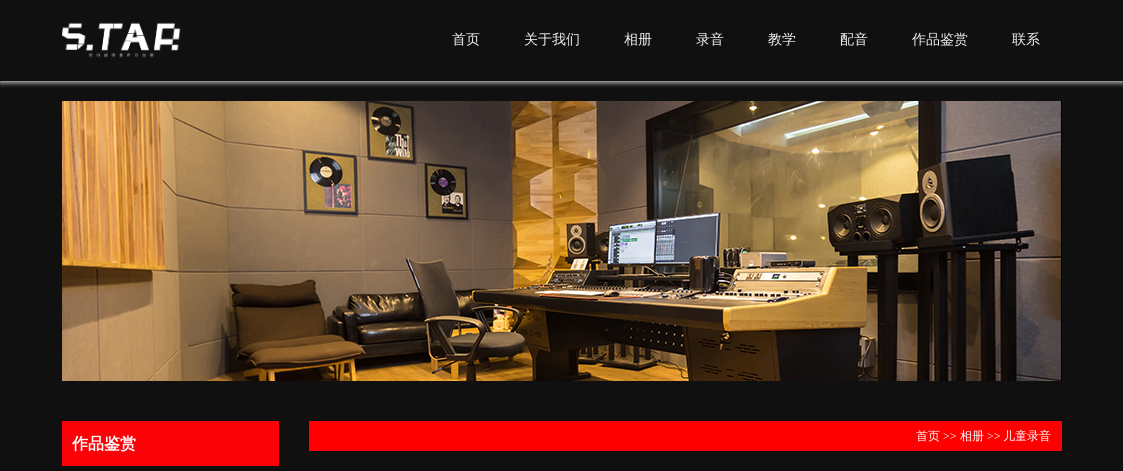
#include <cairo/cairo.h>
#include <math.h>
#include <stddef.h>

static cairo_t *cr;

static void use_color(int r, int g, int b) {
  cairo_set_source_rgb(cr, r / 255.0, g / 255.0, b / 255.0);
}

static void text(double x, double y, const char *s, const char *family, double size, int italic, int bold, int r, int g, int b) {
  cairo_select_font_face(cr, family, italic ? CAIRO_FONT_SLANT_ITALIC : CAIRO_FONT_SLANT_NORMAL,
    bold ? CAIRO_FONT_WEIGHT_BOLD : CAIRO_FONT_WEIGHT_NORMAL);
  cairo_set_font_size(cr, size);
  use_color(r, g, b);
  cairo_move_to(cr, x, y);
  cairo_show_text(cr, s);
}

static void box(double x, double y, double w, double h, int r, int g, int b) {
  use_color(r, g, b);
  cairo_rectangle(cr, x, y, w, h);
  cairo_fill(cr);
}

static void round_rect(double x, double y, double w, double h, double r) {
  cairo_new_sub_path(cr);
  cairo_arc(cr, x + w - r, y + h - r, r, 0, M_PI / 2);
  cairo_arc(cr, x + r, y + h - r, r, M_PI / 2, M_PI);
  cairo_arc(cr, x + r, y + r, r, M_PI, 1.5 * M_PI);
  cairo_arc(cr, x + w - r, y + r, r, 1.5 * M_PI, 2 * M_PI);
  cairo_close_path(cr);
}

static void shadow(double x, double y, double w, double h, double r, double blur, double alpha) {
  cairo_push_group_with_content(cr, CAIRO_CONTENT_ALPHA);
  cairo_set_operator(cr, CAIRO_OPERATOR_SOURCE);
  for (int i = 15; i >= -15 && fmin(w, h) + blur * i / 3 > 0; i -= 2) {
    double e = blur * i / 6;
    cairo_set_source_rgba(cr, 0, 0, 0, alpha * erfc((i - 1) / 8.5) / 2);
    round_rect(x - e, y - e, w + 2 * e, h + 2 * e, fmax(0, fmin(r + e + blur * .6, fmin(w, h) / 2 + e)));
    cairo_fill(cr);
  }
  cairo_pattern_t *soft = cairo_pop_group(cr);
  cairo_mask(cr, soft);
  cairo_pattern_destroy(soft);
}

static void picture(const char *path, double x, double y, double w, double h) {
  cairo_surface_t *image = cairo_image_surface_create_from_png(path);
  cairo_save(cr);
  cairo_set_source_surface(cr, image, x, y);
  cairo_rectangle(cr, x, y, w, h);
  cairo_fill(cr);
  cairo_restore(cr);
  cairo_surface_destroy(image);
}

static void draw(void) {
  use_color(16, 16, 16);
  cairo_paint(cr);
  cairo_save(cr);
  cairo_rectangle(cr, 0, 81, 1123, 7);
  cairo_clip(cr);
  use_color(189, 189, 189);
  shadow(0, 2, 1123, 81, 0, 2.5, 1);
  cairo_restore(cr);
  picture("img_01.png", 62, 22, 119, 36);
  picture("img_02.png", 62, 101, 1000, 280);
  box(62, 421, 217, 45, 251, 2, 8);
  box(309, 421, 753, 30, 255, 0, 0);
  text(452, 44, "首页", "WenQuanYi Zen Hei Medium", 14, 0, 0, 241, 241, 241);
  text(524, 44, "关于我们", "WenQuanYi Zen Hei Medium", 14, 0, 0, 241, 241, 241);
  text(624, 44, "相册", "WenQuanYi Zen Hei Medium", 14, 0, 0, 241, 241, 241);
  text(696, 44, "录音", "WenQuanYi Zen Hei Medium", 14, 0, 0, 241, 241, 241);
  text(768, 44, "教学", "WenQuanYi Zen Hei Medium", 14, 0, 0, 241, 241, 241);
  text(840, 44, "配音", "WenQuanYi Zen Hei Medium", 14, 0, 0, 241, 241, 241);
  text(912, 44, "作品鉴赏", "WenQuanYi Zen Hei Medium", 14, 0, 0, 241, 241, 241);
  text(1012, 44, "联系", "WenQuanYi Zen Hei Medium", 14, 0, 0, 241, 241, 241);
  text(72, 449, "作品鉴赏", "WenQuanYi Zen Hei", 16, 0, 1, 255, 255, 255);
  text(916, 440, "首页", "WenQuanYi Zen Hei Medium", 12, 0, 0, 255, 255, 255);
  text(943, 440, ">>", "Liberation Serif", 12, 0, 0, 255, 255, 255);
  text(960, 440, "相册", "WenQuanYi Zen Hei Medium", 12, 0, 0, 255, 255, 255);
  text(987, 440, ">>", "Liberation Serif", 12, 0, 0, 255, 255, 255);
  text(1003, 440, "儿童录音", "WenQuanYi Zen Hei Medium", 12, 0, 0, 255, 255, 255);
}

int main(void) {
  cairo_surface_t *surface = cairo_image_surface_create(CAIRO_FORMAT_RGB24, 1123, 471);
  cr = cairo_create(surface);
  cairo_font_options_t *options = cairo_font_options_create();
  cairo_font_options_set_hint_metrics(options, CAIRO_HINT_METRICS_OFF);
  cairo_font_options_set_hint_style(options, CAIRO_HINT_STYLE_NONE);
  cairo_set_font_options(cr, options);
  cairo_set_miter_limit(cr, 4);
  draw();
  cairo_surface_write_to_png(surface, "out.png");
  cairo_font_options_destroy(options);
  cairo_destroy(cr);
  cairo_surface_destroy(surface);
  return 0;
}
